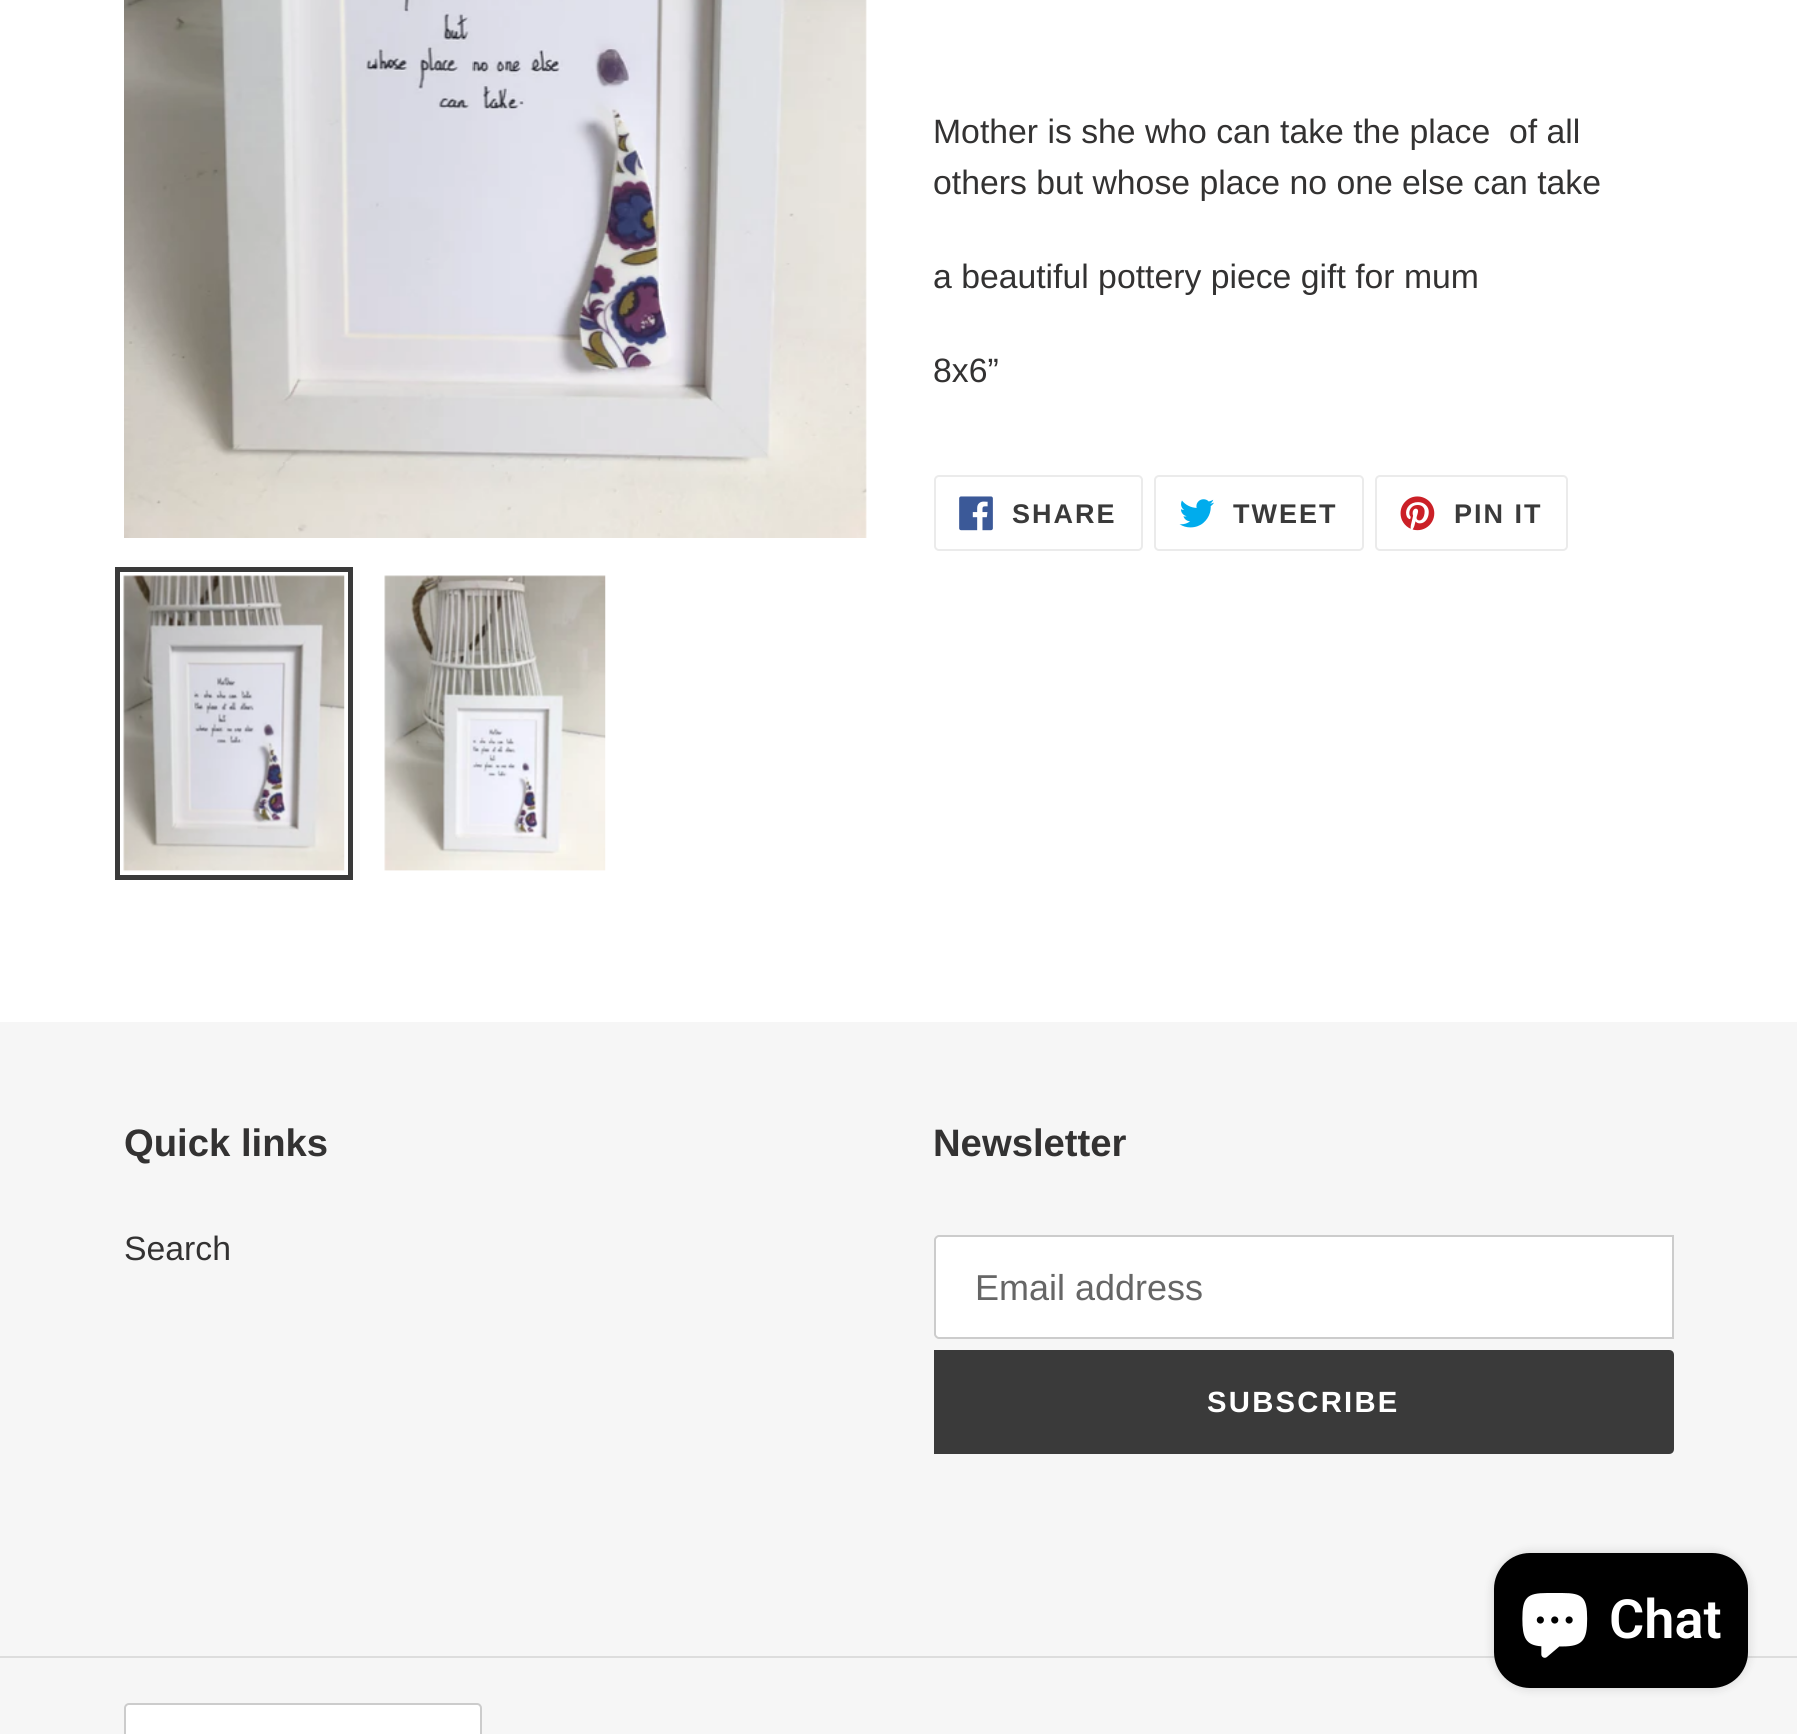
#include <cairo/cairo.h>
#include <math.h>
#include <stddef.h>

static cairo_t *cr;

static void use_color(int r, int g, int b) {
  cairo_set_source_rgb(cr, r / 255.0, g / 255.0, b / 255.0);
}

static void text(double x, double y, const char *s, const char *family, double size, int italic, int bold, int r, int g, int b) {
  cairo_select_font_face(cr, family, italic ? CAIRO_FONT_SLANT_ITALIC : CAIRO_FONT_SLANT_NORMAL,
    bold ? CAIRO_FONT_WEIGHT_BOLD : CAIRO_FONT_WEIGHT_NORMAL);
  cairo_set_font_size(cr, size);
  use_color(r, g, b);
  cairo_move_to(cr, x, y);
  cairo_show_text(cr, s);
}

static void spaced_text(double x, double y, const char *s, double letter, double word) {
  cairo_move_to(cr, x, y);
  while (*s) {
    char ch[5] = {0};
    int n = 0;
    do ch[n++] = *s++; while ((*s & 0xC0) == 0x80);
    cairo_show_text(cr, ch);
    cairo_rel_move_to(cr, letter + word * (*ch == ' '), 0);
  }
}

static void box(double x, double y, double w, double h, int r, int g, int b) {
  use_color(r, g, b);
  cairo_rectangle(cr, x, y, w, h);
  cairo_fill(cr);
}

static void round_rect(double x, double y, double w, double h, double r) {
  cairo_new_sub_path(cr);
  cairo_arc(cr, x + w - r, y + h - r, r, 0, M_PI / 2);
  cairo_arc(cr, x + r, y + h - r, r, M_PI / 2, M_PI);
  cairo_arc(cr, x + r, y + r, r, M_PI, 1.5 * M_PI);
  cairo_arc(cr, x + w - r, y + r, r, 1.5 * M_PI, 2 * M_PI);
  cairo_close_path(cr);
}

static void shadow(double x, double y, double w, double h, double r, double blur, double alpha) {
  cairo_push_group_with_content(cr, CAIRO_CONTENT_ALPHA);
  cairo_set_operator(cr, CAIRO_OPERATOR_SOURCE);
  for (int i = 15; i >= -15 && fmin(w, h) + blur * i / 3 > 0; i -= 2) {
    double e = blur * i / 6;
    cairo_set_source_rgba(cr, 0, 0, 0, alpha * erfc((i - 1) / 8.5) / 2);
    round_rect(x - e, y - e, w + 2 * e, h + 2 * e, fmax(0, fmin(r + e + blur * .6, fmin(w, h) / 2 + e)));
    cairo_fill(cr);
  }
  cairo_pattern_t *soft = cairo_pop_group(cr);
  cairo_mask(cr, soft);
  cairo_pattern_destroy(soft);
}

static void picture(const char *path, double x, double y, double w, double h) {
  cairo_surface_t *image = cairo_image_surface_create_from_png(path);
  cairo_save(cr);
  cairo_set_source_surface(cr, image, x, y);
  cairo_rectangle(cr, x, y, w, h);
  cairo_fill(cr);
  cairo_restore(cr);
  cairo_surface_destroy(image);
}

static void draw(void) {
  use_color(255, 255, 255);
  cairo_paint(cr);
  picture("img_01.png", 124, 0, 743, 538);
  cairo_rectangle(cr, 117.5, 569.5, 233, 308);
  use_color(58, 58, 58);
  cairo_set_line_width(cr, 5);
  cairo_stroke(cr);
  picture("img_02.png", 123, 575, 222, 297);
  picture("img_03.png", 384, 575, 222, 296);
  round_rect(935, 476, 207, 74, 4);
  use_color(235, 235, 235);
  cairo_set_line_width(cr, 2);
  cairo_stroke(cr);
  picture("img_04.png", 959, 496, 34, 35);
  round_rect(1155, 476, 208, 74, 4);
  cairo_stroke(cr);
  picture("img_05.png", 1179, 499, 35, 29);
  round_rect(1376, 476, 191, 74, 4);
  cairo_stroke(cr);
  picture("img_06.png", 1400, 496, 35, 35);
  box(0, 1022, 1797, 712, 246, 246, 246);
  use_color(255, 255, 255);
  cairo_new_path(cr);
  cairo_move_to(cr, 939, 1236);
  cairo_line_to(cr, 1673, 1236);
  cairo_line_to(cr, 1673, 1338);
  cairo_line_to(cr, 939, 1338);
  cairo_curve_to(cr, 937, 1338, 935, 1336, 935, 1334);
  cairo_line_to(cr, 935, 1240);
  cairo_curve_to(cr, 935, 1238, 937, 1236, 939, 1236);
  cairo_close_path(cr);
  cairo_fill_preserve(cr);
  use_color(204, 204, 204);
  cairo_stroke(cr);
  use_color(58, 58, 58);
  cairo_new_path(cr);
  cairo_move_to(cr, 934, 1350);
  cairo_line_to(cr, 1669, 1350);
  cairo_curve_to(cr, 1672, 1350, 1674, 1352, 1674, 1355);
  cairo_line_to(cr, 1674, 1449);
  cairo_curve_to(cr, 1674, 1452, 1672, 1454, 1669, 1454);
  cairo_line_to(cr, 934, 1454);
  cairo_close_path(cr);
  cairo_fill(cr);
  box(0, 1656, 1797, 2, 221, 221, 221);
  use_color(255, 255, 255);
  round_rect(125, 1704, 356, 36, 4);
  cairo_fill_preserve(cr);
  use_color(204, 204, 204);
  cairo_stroke(cr);
  use_color(0, 0, 0);
  shadow(1494, 1553, 254, 135, 36, 5.5, 0.15);
  use_color(0, 0, 0);
  round_rect(1494, 1553, 254, 135, 36);
  cairo_fill(cr);
  picture("img_07.png", 1522, 1593, 66, 65);
  text(933, 143, "Mother is she who can take the place  of all", "Liberation Sans", 33.75, 0, 0, 51, 50, 50);
  text(933, 194, "others but whose place no one else can take", "Liberation Sans", 33.75, 0, 0, 51, 50, 50);
  text(933, 288, "a beautiful pottery piece gift for mum", "Liberation Sans", 33.75, 0, 0, 51, 50, 50);
  text(933, 382, "8x6”", "Liberation Sans", 33.75, 0, 0, 51, 50, 50);
  cairo_select_font_face(cr, "Liberation Sans", CAIRO_FONT_SLANT_NORMAL, CAIRO_FONT_WEIGHT_BOLD);
  cairo_set_font_size(cr, 27);
  use_color(58, 58, 58);
  spaced_text(1012, 523, "SHARE", 2, 0);
  spaced_text(1233, 523, "TWEET", 2, 0);
  spaced_text(1454, 523, "PIN IT", 2, 0);
  text(124, 1156, "Quick links", "Liberation Sans", 38.25, 0, 1, 51, 50, 50);
  text(124, 1260, "Search", "Liberation Sans", 33.75, 0, 0, 51, 50, 50);
  text(933, 1156, "Newsletter", "Liberation Sans", 38.25, 0, 1, 51, 50, 50);
  text(975, 1300, "Email address", "Liberation Sans", 36, 0, 0, 102, 102, 102);
  cairo_select_font_face(cr, "Liberation Sans", CAIRO_FONT_SLANT_NORMAL, CAIRO_FONT_WEIGHT_BOLD);
  cairo_set_font_size(cr, 29.25);
  use_color(255, 255, 255);
  spaced_text(1207, 1412, "SUBSCRIBE", 2.25, 0);
  text(1609, 1638, "Chat", "Roboto SemiBold", 54, 0, 0, 255, 255, 255);
}

int main(void) {
  cairo_surface_t *surface = cairo_image_surface_create(CAIRO_FORMAT_RGB24, 1797, 1734);
  cr = cairo_create(surface);
  cairo_font_options_t *options = cairo_font_options_create();
  cairo_font_options_set_hint_metrics(options, CAIRO_HINT_METRICS_OFF);
  cairo_font_options_set_hint_style(options, CAIRO_HINT_STYLE_NONE);
  cairo_set_font_options(cr, options);
  cairo_set_miter_limit(cr, 4);
  draw();
  cairo_surface_write_to_png(surface, "out.png");
  cairo_font_options_destroy(options);
  cairo_destroy(cr);
  cairo_surface_destroy(surface);
  return 0;
}
